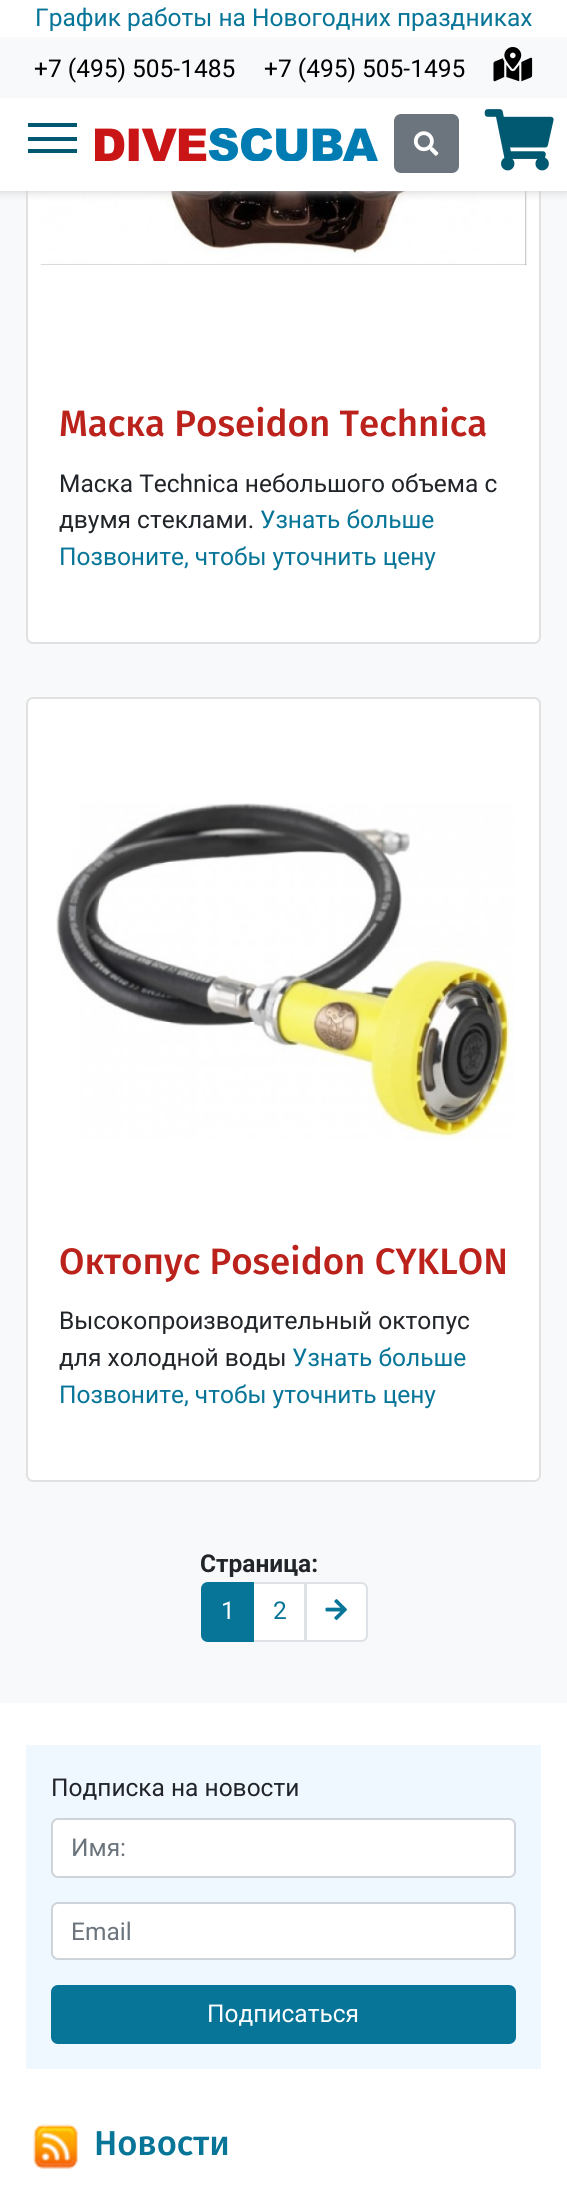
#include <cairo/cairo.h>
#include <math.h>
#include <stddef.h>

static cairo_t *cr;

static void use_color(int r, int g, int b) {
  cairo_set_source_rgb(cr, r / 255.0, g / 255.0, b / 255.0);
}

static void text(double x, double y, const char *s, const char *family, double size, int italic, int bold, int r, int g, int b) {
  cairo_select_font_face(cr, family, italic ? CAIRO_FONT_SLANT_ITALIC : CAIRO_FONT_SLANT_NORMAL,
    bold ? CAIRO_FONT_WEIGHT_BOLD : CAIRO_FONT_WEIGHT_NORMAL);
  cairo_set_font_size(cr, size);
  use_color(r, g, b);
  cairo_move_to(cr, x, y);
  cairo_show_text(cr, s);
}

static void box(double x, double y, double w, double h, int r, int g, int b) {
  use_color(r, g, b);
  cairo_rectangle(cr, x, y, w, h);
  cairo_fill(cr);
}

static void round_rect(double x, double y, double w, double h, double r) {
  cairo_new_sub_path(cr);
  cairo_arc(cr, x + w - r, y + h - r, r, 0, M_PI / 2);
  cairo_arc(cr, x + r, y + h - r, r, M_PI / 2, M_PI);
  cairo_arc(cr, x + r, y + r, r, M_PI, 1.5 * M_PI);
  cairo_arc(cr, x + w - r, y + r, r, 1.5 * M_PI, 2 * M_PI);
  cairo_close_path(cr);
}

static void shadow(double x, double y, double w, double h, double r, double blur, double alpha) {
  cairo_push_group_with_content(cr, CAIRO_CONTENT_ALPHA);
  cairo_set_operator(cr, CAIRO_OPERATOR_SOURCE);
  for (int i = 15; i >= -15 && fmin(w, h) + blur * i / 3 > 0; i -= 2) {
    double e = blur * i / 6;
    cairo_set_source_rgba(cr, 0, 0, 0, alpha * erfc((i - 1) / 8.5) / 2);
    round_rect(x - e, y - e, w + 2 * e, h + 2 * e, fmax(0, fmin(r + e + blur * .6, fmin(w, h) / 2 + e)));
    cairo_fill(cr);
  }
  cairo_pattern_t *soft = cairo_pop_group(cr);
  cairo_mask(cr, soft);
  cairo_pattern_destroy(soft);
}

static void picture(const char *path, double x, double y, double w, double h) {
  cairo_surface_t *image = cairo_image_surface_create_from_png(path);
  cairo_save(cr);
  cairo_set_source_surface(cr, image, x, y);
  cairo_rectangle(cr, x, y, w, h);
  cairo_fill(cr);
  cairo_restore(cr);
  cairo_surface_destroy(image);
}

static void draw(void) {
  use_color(255, 255, 255);
  cairo_paint(cr);
  box(0, 191, 567, 1512, 248, 249, 250);
  use_color(255, 255, 255);
  round_rect(26, -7, 515, 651, 7);
  cairo_fill(cr);
  round_rect(27, -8, 513, 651, 6);
  cairo_set_source_rgba(cr, 0, 0, 0, 0.12);
  cairo_stroke(cr);
  picture("img_05.png", 40, 191, 487, 74);
  use_color(204, 204, 204);
  shadow(0, 0, 567, 191, 0, 5, 1);
  box(0, 0, 567, 191, 255, 255, 255);
  box(0, 37, 567, 61, 248, 249, 250);
  picture("img_01.png", 493, 47, 40, 35);
  box(28, 123, 49, 4, 1, 88, 113);
  box(28, 149, 49, 4, 1, 88, 113);
  box(28, 137, 49, 4, 1, 88, 113);
  picture("img_02.png", 95, 128, 283, 33);
  use_color(108, 117, 125);
  round_rect(395, 115, 63, 57, 6);
  cairo_fill_preserve(cr);
  cairo_stroke(cr);
  picture("img_03.png", 413, 131, 26, 25);
  picture("img_04.png", 484, 109, 70, 62);
  use_color(255, 255, 255);
  round_rect(26, 697, 515, 785, 7);
  cairo_fill(cr);
  round_rect(27, 698, 513, 783, 6);
  cairo_set_source_rgba(cr, 0, 0, 0, 0.12);
  cairo_stroke(cr);
  picture("img_06.png", 56, 803, 458, 337);
  use_color(255, 255, 255);
  cairo_rectangle(cr, 253, 1583, 52, 58);
  cairo_fill_preserve(cr);
  use_color(222, 226, 230);
  cairo_stroke(cr);
  use_color(7, 117, 152);
  cairo_new_path(cr);
  cairo_move_to(cr, 208, 1583);
  cairo_line_to(cr, 253, 1583);
  cairo_line_to(cr, 253, 1641);
  cairo_line_to(cr, 208, 1641);
  cairo_curve_to(cr, 204.5, 1641, 202, 1638.5, 202, 1635);
  cairo_line_to(cr, 202, 1589);
  cairo_curve_to(cr, 202, 1585.5, 204.5, 1583, 208, 1583);
  cairo_close_path(cr);
  cairo_fill_preserve(cr);
  cairo_stroke(cr);
  use_color(255, 255, 255);
  cairo_new_path(cr);
  cairo_move_to(cr, 306, 1583);
  cairo_line_to(cr, 361, 1583);
  cairo_curve_to(cr, 364.5, 1583, 367, 1585.5, 367, 1589);
  cairo_line_to(cr, 367, 1635);
  cairo_curve_to(cr, 367, 1638.5, 364.5, 1641, 361, 1641);
  cairo_line_to(cr, 306, 1641);
  cairo_close_path(cr);
  cairo_fill_preserve(cr);
  use_color(222, 226, 230);
  cairo_stroke(cr);
  picture("img_07.png", 325, 1599, 22, 21);
  box(26, 1745, 515, 324, 240, 248, 255);
  use_color(255, 255, 255);
  round_rect(53, 1820, 462, 56, 4);
  cairo_fill(cr);
  round_rect(52, 1819, 463, 58, 6);
  use_color(206, 212, 218);
  cairo_stroke(cr);
  use_color(255, 255, 255);
  round_rect(53, 1904, 462, 54, 4);
  cairo_fill(cr);
  round_rect(52, 1903, 463, 56, 6);
  use_color(206, 212, 218);
  cairo_stroke(cr);
  use_color(7, 117, 152);
  round_rect(52, 1986, 463, 57, 6);
  cairo_fill_preserve(cr);
  cairo_stroke(cr);
  picture("img_08.png", 33, 2124, 46, 45);
  text(35, 26, "График работы на Новогодних праздниках", "Roboto", 24.5, 0, 0, 7, 117, 152);
  text(34, 77, "+7 (495) 505-1485", "Roboto", 24.5, 0, 0, 0, 0, 0);
  text(264, 77, "+7 (495) 505-1495", "Roboto", 24.5, 0, 0, 0, 0, 0);
  text(59, 436, "Маска Poseidon Technica", "Fira Sans Medium", 36.75, 0, 0, 187, 34, 28);
  text(59, 492, "Маска Technica небольшого объема с", "Roboto", 24.5, 0, 0, 33, 37, 41);
  text(59, 528, "двумя стеклами.", "Roboto", 24.5, 0, 0, 33, 37, 41);
  text(260, 528, "Узнать больше", "Roboto", 24.5, 0, 0, 7, 117, 152);
  text(59, 565, "Позвоните, чтобы уточнить цену", "Roboto", 24.5, 0, 0, 7, 117, 152);
  text(59, 1274, "Октопус Poseidon CYKLON", "Fira Sans Medium", 36.75, 0, 0, 187, 34, 28);
  text(59, 1329, "Высокопроизводительный октопус", "Roboto", 24.5, 0, 0, 33, 37, 41);
  text(59, 1366, "для холодной воды", "Roboto", 24.5, 0, 0, 33, 37, 41);
  text(292, 1366, "Узнать больше", "Roboto", 24.5, 0, 0, 7, 117, 152);
  text(59, 1403, "Позвоните, чтобы уточнить цену", "Roboto", 24.5, 0, 0, 7, 117, 152);
  text(200, 1572, "Страница:", "Roboto", 24.5, 0, 1, 33, 37, 41);
  text(221, 1619, "1", "Roboto", 24.5, 0, 0, 255, 255, 255);
  text(273, 1619, "2", "Roboto", 24.5, 0, 0, 7, 117, 152);
  text(51, 1796, "Подписка на новости", "Roboto", 24.5, 0, 0, 33, 37, 41);
  text(71, 1856, "Имя:", "Roboto", 24.5, 0, 0, 108, 117, 125);
  text(71, 1940, "Email", "Roboto", 24.5, 0, 0, 108, 117, 125);
  text(207, 2022, "Подписаться", "Roboto", 24.5, 0, 0, 255, 255, 255);
  text(94, 2155, "Новости", "Fira Sans Medium", 34.5, 0, 0, 7, 117, 152);
}

int main(void) {
  cairo_surface_t *surface = cairo_image_surface_create(CAIRO_FORMAT_RGB24, 567, 2200);
  cr = cairo_create(surface);
  cairo_font_options_t *options = cairo_font_options_create();
  cairo_font_options_set_hint_metrics(options, CAIRO_HINT_METRICS_OFF);
  cairo_font_options_set_hint_style(options, CAIRO_HINT_STYLE_NONE);
  cairo_set_font_options(cr, options);
  cairo_set_miter_limit(cr, 4);
  draw();
  cairo_surface_write_to_png(surface, "out.png");
  cairo_font_options_destroy(options);
  cairo_destroy(cr);
  cairo_surface_destroy(surface);
  return 0;
}
